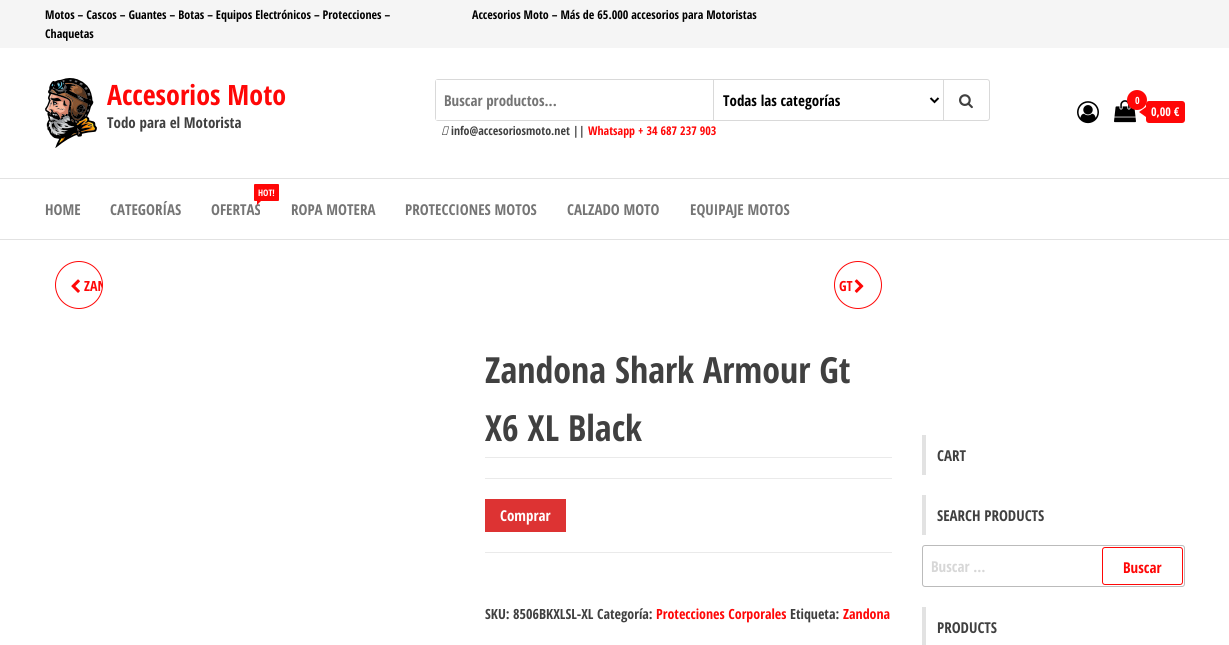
#include <cairo/cairo.h>
#include <math.h>
#include <stddef.h>

static cairo_t *cr;

static void use_color(int r, int g, int b) {
  cairo_set_source_rgb(cr, r / 255.0, g / 255.0, b / 255.0);
}

static void text(double x, double y, const char *s, const char *family, double size, int italic, int bold, int r, int g, int b) {
  cairo_select_font_face(cr, family, italic ? CAIRO_FONT_SLANT_ITALIC : CAIRO_FONT_SLANT_NORMAL,
    bold ? CAIRO_FONT_WEIGHT_BOLD : CAIRO_FONT_WEIGHT_NORMAL);
  cairo_set_font_size(cr, size);
  use_color(r, g, b);
  cairo_move_to(cr, x, y);
  cairo_show_text(cr, s);
}

static void box(double x, double y, double w, double h, int r, int g, int b) {
  use_color(r, g, b);
  cairo_rectangle(cr, x, y, w, h);
  cairo_fill(cr);
}

static void round_rect(double x, double y, double w, double h, double r) {
  cairo_new_sub_path(cr);
  cairo_arc(cr, x + w - r, y + h - r, r, 0, M_PI / 2);
  cairo_arc(cr, x + r, y + h - r, r, M_PI / 2, M_PI);
  cairo_arc(cr, x + r, y + r, r, M_PI, 1.5 * M_PI);
  cairo_arc(cr, x + w - r, y + r, r, 1.5 * M_PI, 2 * M_PI);
  cairo_close_path(cr);
}

static void picture(const char *path, double x, double y, double w, double h) {
  cairo_surface_t *image = cairo_image_surface_create_from_png(path);
  cairo_save(cr);
  cairo_set_source_surface(cr, image, x, y);
  cairo_rectangle(cr, x, y, w, h);
  cairo_fill(cr);
  cairo_restore(cr);
  cairo_surface_destroy(image);
}

static void draw(void) {
  use_color(255, 255, 255);
  cairo_paint(cr);
  box(0, 0, 1229, 48, 245, 245, 245);
  picture("img_01.png", 45, 78, 52, 70);
  round_rect(435.5, 79.5, 554, 41, 2.5);
  use_color(217, 217, 217);
  cairo_set_line_width(cr, 1);
  cairo_stroke(cr);
  box(436, 80, 2, 40, 255, 255, 255);
  box(713, 80, 1, 40, 217, 217, 217);
  cairo_new_path(cr);
  cairo_move_to(cr, 930.5, 98);
  cairo_line_to(cr, 934.5, 102);
  cairo_line_to(cr, 938.5, 98);
  use_color(0, 0, 0);
  cairo_set_line_width(cr, 2);
  cairo_stroke(cr);
  box(943, 80, 1, 40, 217, 217, 217);
  picture("img_02.png", 959, 94, 14, 15);
  picture("img_03.png", 442, 126, 7, 9);
  picture("img_04.png", 1077, 101, 22, 23);
  picture("img_05.png", 1114, 100, 22, 23);
  use_color(255, 7, 7);
  cairo_arc(cr, 1137, 100, 10, 0, 2 * M_PI);
  cairo_fill(cr);
  round_rect(1146, 101, 39, 22, 3);
  cairo_fill(cr);
  cairo_new_path(cr);
  cairo_move_to(cr, 1146, 107);
  cairo_line_to(cr, 1146, 117);
  cairo_line_to(cr, 1139, 112);
  cairo_close_path(cr);
  cairo_fill(cr);
  box(0, 178, 1229, 1, 226, 226, 226);
  box(0, 239, 1229, 1, 226, 226, 226);
  use_color(255, 7, 7);
  round_rect(254, 184, 25, 17, 1);
  cairo_fill(cr);
  cairo_arc(cr, 79, 285, 23.5, 0, 2 * M_PI);
  cairo_set_line_width(cr, 1);
  cairo_stroke(cr);
  picture("img_06.png", 71, 279, 9, 14);
  cairo_arc(cr, 858, 285, 23.5, 0, 2 * M_PI);
  cairo_stroke(cr);
  picture("img_07.png", 854, 279, 10, 14);
  box(485, 457, 407, 1, 234, 234, 234);
  box(485, 478, 407, 1, 234, 234, 234);
  box(485, 552, 407, 1, 234, 234, 234);
  box(485, 499, 81, 33, 221, 51, 51);
  box(922, 435, 4, 40, 226, 226, 226);
  box(922, 495, 4, 40, 226, 226, 226);
  round_rect(922.5, 545.5, 262, 41, 2.5);
  use_color(187, 187, 187);
  cairo_stroke(cr);
  round_rect(1102.5, 547.5, 80, 37, 2.5);
  use_color(255, 7, 7);
  cairo_stroke(cr);
  box(922, 607, 4, 38, 226, 226, 226);
  text(45, 19, "Motos – Cascos – Guantes – Botas – Equipos Electrónicos – Protecciones –", "Open Sans Condensed", 12, 0, 1, 0, 0, 0);
  text(45, 38, "Chaquetas", "Open Sans Condensed", 12, 0, 1, 0, 0, 0);
  text(472, 19, "Accesorios Moto – Más de 65.000 accesorios para Motoristas", "Open Sans Condensed", 12, 0, 1, 0, 0, 0);
  text(107, 105, "Accesorios Moto", "Open Sans Condensed", 28, 0, 1, 255, 7, 7);
  text(107, 128, "Todo para el Motorista", "Open Sans Condensed", 15, 0, 1, 64, 64, 64);
  text(444, 106, "Buscar productos...", "Open Sans Condensed", 15, 0, 1, 117, 117, 117);
  text(723, 106, "Todas las categorías", "Open Sans Condensed", 15, 0, 1, 0, 0, 0);
  text(451, 135, "info@accesoriosmoto.net ||", "Open Sans Condensed", 12, 0, 1, 64, 64, 64);
  text(588, 135, "Whatsapp + 34 687 237 903", "Open Sans Condensed", 12, 0, 1, 255, 7, 7);
  text(1135, 104, "0", "Open Sans Condensed", 10, 0, 1, 255, 255, 255);
  text(1151, 116, "0,00 €", "Open Sans Condensed", 12, 0, 1, 255, 255, 255);
  text(45, 215, "HOME", "Open Sans Condensed", 15, 0, 1, 117, 117, 117);
  text(110, 215, "CATEGORÍAS", "Open Sans Condensed", 15, 0, 1, 117, 117, 117);
  text(258, 196, "HOT!", "Open Sans Condensed", 9, 0, 1, 255, 255, 255);
  text(211, 215, "OFERTAS", "Open Sans Condensed", 15, 0, 1, 117, 117, 117);
  use_color(255, 7, 7);
  cairo_new_path(cr);
  cairo_move_to(cr, 257, 200);
  cairo_line_to(cr, 262, 200);
  cairo_line_to(cr, 257, 205);
  cairo_close_path(cr);
  cairo_fill(cr);
  text(291, 215, "ROPA MOTERA", "Open Sans Condensed", 15, 0, 1, 117, 117, 117);
  text(405, 215, "PROTECCIONES MOTOS", "Open Sans Condensed", 15, 0, 1, 117, 117, 117);
  text(567, 215, "CALZADO MOTO", "Open Sans Condensed", 15, 0, 1, 117, 117, 117);
  text(690, 215, "EQUIPAJE MOTOS", "Open Sans Condensed", 15, 0, 1, 117, 117, 117);
  cairo_save(cr);
  round_rect(56, 262, 46, 46, 23);
  cairo_clip(cr);
  text(84, 291, "ZAN", "Open Sans Condensed", 14, 0, 1, 255, 7, 7);
  cairo_restore(cr);
  text(839, 291, "GT", "Open Sans Condensed", 14, 0, 1, 255, 7, 7);
  text(485, 383, "Zandona Shark Armour Gt", "Open Sans Condensed", 36, 0, 1, 64, 64, 64);
  text(485, 441, "X6 XL Black", "Open Sans Condensed", 36, 0, 1, 64, 64, 64);
  text(500, 521, "Comprar", "Open Sans Condensed", 15, 0, 1, 255, 255, 255);
  text(485, 619, "SKU: 8506BKXLSL-XL Categoría:", "Open Sans Condensed", 14, 0, 1, 64, 64, 64);
  text(656, 619, "Protecciones Corporales", "Open Sans Condensed", 14, 0, 1, 255, 7, 7);
  text(790, 619, "Etiqueta:", "Open Sans Condensed", 14, 0, 1, 64, 64, 64);
  text(843, 619, "Zandona", "Open Sans Condensed", 14, 0, 1, 255, 7, 7);
  text(937, 461, "CART", "Open Sans Condensed", 15, 0, 1, 64, 64, 64);
  text(937, 521, "SEARCH PRODUCTS", "Open Sans Condensed", 15, 0, 1, 64, 64, 64);
  text(931, 572, "Buscar …", "Open Sans Condensed", 15, 0, 1, 215, 215, 215);
  text(1123, 573, "Buscar", "Open Sans Condensed", 15, 0, 1, 255, 7, 7);
  text(937, 633, "PRODUCTS", "Open Sans Condensed", 15, 0, 1, 64, 64, 64);
}

int main(void) {
  cairo_surface_t *surface = cairo_image_surface_create(CAIRO_FORMAT_RGB24, 1229, 645);
  cr = cairo_create(surface);
  cairo_font_options_t *options = cairo_font_options_create();
  cairo_font_options_set_hint_metrics(options, CAIRO_HINT_METRICS_OFF);
  cairo_font_options_set_hint_style(options, CAIRO_HINT_STYLE_NONE);
  cairo_set_font_options(cr, options);
  cairo_set_miter_limit(cr, 4);
  draw();
  cairo_surface_write_to_png(surface, "out.png");
  cairo_font_options_destroy(options);
  cairo_destroy(cr);
  cairo_surface_destroy(surface);
  return 0;
}
